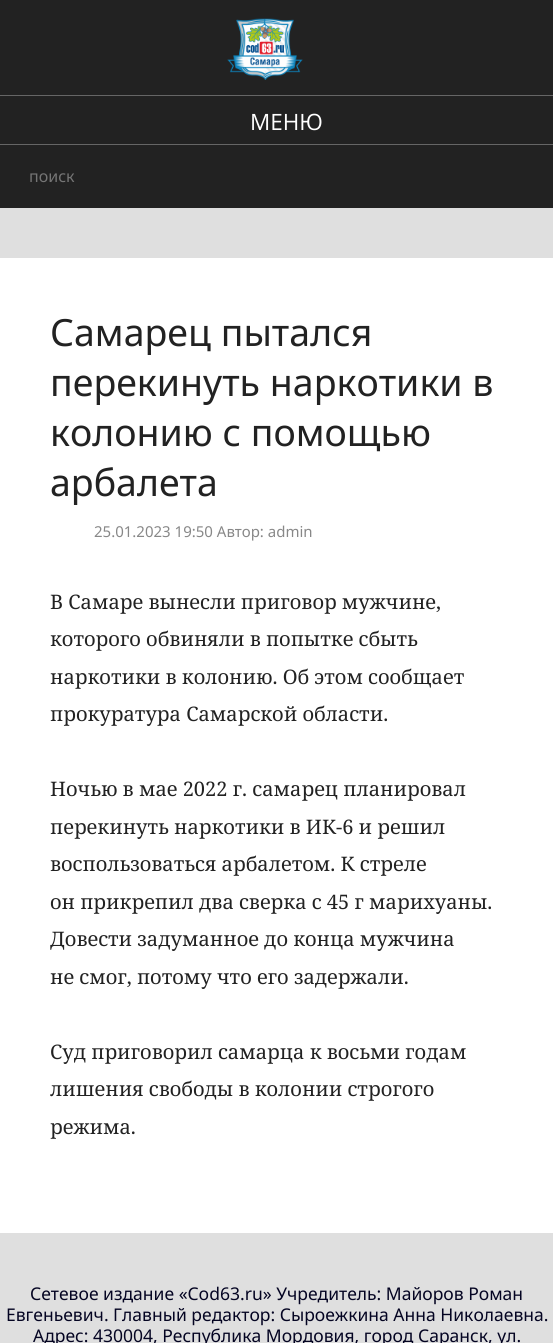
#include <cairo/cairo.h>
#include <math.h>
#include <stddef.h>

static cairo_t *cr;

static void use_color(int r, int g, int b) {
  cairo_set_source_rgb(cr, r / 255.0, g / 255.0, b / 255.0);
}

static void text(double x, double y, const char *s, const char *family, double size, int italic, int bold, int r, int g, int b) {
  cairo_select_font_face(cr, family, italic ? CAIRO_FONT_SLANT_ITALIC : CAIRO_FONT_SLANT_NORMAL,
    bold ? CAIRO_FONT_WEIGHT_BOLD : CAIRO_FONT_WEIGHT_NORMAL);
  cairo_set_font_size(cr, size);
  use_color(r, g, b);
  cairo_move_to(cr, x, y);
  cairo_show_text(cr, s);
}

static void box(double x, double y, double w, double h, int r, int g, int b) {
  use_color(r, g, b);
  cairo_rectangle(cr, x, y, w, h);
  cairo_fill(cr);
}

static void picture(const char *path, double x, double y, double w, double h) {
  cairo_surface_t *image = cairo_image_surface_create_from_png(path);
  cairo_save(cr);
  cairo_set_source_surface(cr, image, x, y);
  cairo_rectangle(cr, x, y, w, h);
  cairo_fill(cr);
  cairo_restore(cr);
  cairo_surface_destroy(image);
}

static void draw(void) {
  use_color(223, 223, 223);
  cairo_paint(cr);
  box(0, 0, 553, 208, 34, 34, 34);
  picture("img_01.png", 227, 18, 76, 62);
  box(0, 95, 553, 1, 102, 102, 102);
  box(0, 144, 553, 1, 102, 102, 102);
  box(0, 258, 553, 975, 255, 255, 255);
  text(250, 130, "МЕНЮ", "Open Sans", 22.5, 0, 0, 255, 255, 255);
  text(29, 182, "поиск", "Noto Sans", 16, 0, 0, 117, 117, 117);
  text(50, 346, "Самарец пытался", "Noto Sans", 37.5, 0, 0, 34, 34, 34);
  text(50, 396, "перекинуть наркотики в", "Noto Sans", 37.5, 0, 0, 34, 34, 34);
  text(50, 446, "колонию с помощью", "Noto Sans", 37.5, 0, 0, 34, 34, 34);
  text(50, 496, "арбалета", "Noto Sans", 37.5, 0, 0, 34, 34, 34);
  text(94, 537, "25.01.2023 19:50 Автор: admin", "Noto Sans", 15, 0, 0, 136, 136, 136);
  text(50, 609, "В Самаре вынесли приговор мужчине,", "Noto Serif", 20, 0, 0, 34, 34, 34);
  text(50, 646, "которого обвиняли в попытке сбыть", "Noto Serif", 20, 0, 0, 34, 34, 34);
  text(50, 684, "наркотики в колонию. Об этом сообщает", "Noto Serif", 20, 0, 0, 34, 34, 34);
  text(50, 721, "прокуратура Самарской области.", "Noto Serif", 20, 0, 0, 34, 34, 34);
  text(50, 796, "Ночью в мае 2022 г. самарец планировал", "Noto Serif", 20, 0, 0, 34, 34, 34);
  text(50, 834, "перекинуть наркотики в ИК-6 и решил", "Noto Serif", 20, 0, 0, 34, 34, 34);
  text(50, 871, "воспользоваться арбалетом. К стреле", "Noto Serif", 20, 0, 0, 34, 34, 34);
  text(50, 909, "он прикрепил два сверка с 45 г марихуаны.", "Noto Serif", 20, 0, 0, 34, 34, 34);
  text(50, 946, "Довести задуманное до конца мужчина", "Noto Serif", 20, 0, 0, 34, 34, 34);
  text(50, 984, "не смог, потому что его задержали.", "Noto Serif", 20, 0, 0, 34, 34, 34);
  text(50, 1059, "Суд приговорил самарца к восьми годам", "Noto Serif", 20, 0, 0, 34, 34, 34);
  text(50, 1096, "лишения свободы в колонии строгого", "Noto Serif", 20, 0, 0, 34, 34, 34);
  text(50, 1134, "режима.", "Noto Serif", 20, 0, 0, 34, 34, 34);
  text(30, 1300, "Сетевое издание «Cod63.ru» Учредитель: Майоров Роман", "Noto Sans", 17.5, 0, 0, 4, 4, 34);
  text(6, 1321, "Евгеньевич. Главный редактор: Сыроежкина Анна Николаевна.", "Noto Sans", 17.5, 0, 0, 4, 4, 34);
  text(33, 1342, "Адрес: 430004, Республика Мордовия, город Саранск, ул.", "Noto Sans", 17.5, 0, 0, 4, 4, 34);
}

int main(void) {
  cairo_surface_t *surface = cairo_image_surface_create(CAIRO_FORMAT_RGB24, 553, 1343);
  cr = cairo_create(surface);
  cairo_font_options_t *options = cairo_font_options_create();
  cairo_font_options_set_hint_metrics(options, CAIRO_HINT_METRICS_OFF);
  cairo_font_options_set_hint_style(options, CAIRO_HINT_STYLE_NONE);
  cairo_set_font_options(cr, options);
  cairo_set_miter_limit(cr, 4);
  draw();
  cairo_surface_write_to_png(surface, "out.png");
  cairo_font_options_destroy(options);
  cairo_destroy(cr);
  cairo_surface_destroy(surface);
  return 0;
}
